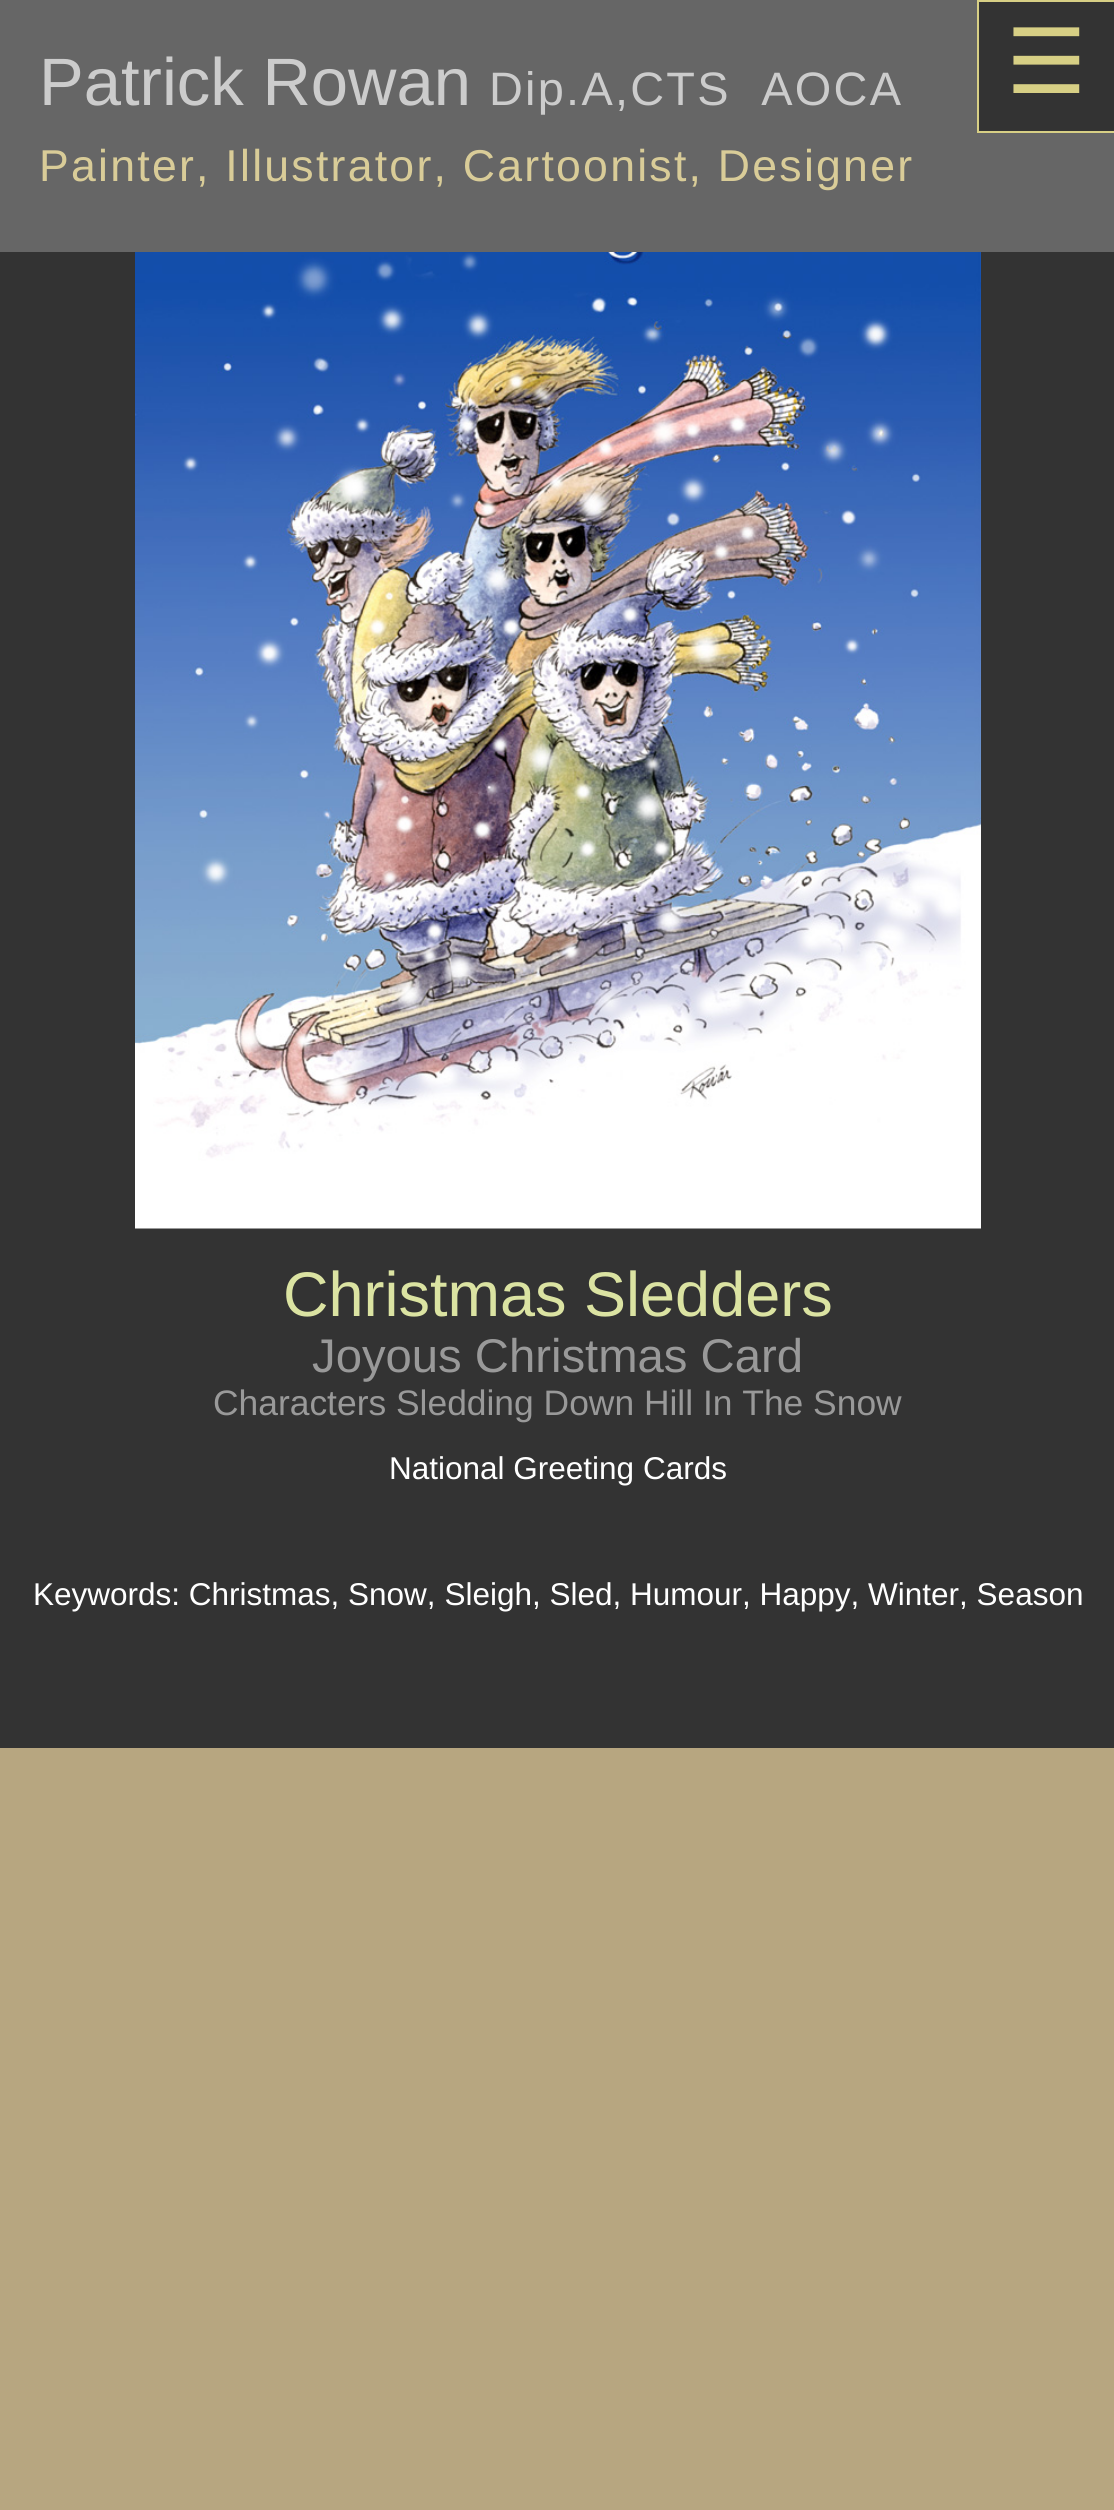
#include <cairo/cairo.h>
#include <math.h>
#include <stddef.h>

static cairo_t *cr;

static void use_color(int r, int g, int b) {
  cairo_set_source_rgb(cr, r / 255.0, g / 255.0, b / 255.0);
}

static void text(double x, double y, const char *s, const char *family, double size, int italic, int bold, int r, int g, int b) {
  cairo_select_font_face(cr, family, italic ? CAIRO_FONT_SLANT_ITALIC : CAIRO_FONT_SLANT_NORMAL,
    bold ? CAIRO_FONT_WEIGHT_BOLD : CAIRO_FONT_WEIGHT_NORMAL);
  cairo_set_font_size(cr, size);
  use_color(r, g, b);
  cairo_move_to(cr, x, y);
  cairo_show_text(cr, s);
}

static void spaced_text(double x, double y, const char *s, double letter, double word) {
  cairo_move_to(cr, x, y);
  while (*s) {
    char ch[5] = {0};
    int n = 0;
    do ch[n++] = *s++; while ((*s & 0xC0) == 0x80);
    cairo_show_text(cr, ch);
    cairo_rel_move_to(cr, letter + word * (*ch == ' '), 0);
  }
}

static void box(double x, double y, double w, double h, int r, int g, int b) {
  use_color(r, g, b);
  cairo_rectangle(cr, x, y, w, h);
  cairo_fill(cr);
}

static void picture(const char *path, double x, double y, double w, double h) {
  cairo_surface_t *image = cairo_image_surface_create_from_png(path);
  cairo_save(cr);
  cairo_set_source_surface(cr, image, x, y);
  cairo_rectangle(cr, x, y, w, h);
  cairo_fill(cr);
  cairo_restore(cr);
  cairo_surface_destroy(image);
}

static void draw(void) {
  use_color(183, 166, 128);
  cairo_paint(cr);
  box(0, 0, 1114, 252, 102, 102, 102);
  use_color(51, 51, 51);
  cairo_rectangle(cr, 978, 1, 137, 131);
  cairo_fill_preserve(cr);
  use_color(215, 207, 133);
  cairo_stroke(cr);
  box(0, 252, 1114, 1496, 51, 51, 51);
  picture("img_01.png", 135, 252, 846, 977);
  text(1006, 93, "☰", "DejaVu Sans", 90, 0, 0, 215, 207, 133);
  text(39, 105, "Patrick Rowan", "Liberation Sans", 67, 0, 0, 204, 204, 204);
  cairo_set_font_size(cr, 46.9);
  spaced_text(489, 105, "Dip.A,CTS  AOCA", 2.25, 0);
  cairo_set_font_size(cr, 44.6);
  use_color(217, 204, 152);
  spaced_text(39, 181, "Painter, Illustrator, Cartoonist, Designer", 2.25, 0);
  text(283, 1316, "Christmas Sledders", "Liberation Sans", 63, 0, 0, 219, 227, 162);
  text(312, 1372, "Joyous Christmas Card", "Liberation Sans", 47.25, 0, 0, 153, 153, 153);
  text(213, 1415, "Characters Sledding Down Hill In The Snow", "Liberation Sans", 35.4, 0, 0, 153, 153, 153);
  text(389, 1479, "National Greeting Cards", "Liberation Sans", 31.5, 0, 0, 255, 255, 255);
  text(33, 1605, "Keywords: Christmas, Snow, Sleigh, Sled, Humour, Happy, Winter, Season", "Liberation Sans", 31.5, 0, 0, 255, 255, 255);
}

int main(void) {
  cairo_surface_t *surface = cairo_image_surface_create(CAIRO_FORMAT_RGB24, 1114, 2510);
  cr = cairo_create(surface);
  cairo_font_options_t *options = cairo_font_options_create();
  cairo_font_options_set_hint_metrics(options, CAIRO_HINT_METRICS_OFF);
  cairo_font_options_set_hint_style(options, CAIRO_HINT_STYLE_NONE);
  cairo_set_font_options(cr, options);
  cairo_set_miter_limit(cr, 4);
  draw();
  cairo_surface_write_to_png(surface, "out.png");
  cairo_font_options_destroy(options);
  cairo_destroy(cr);
  cairo_surface_destroy(surface);
  return 0;
}
